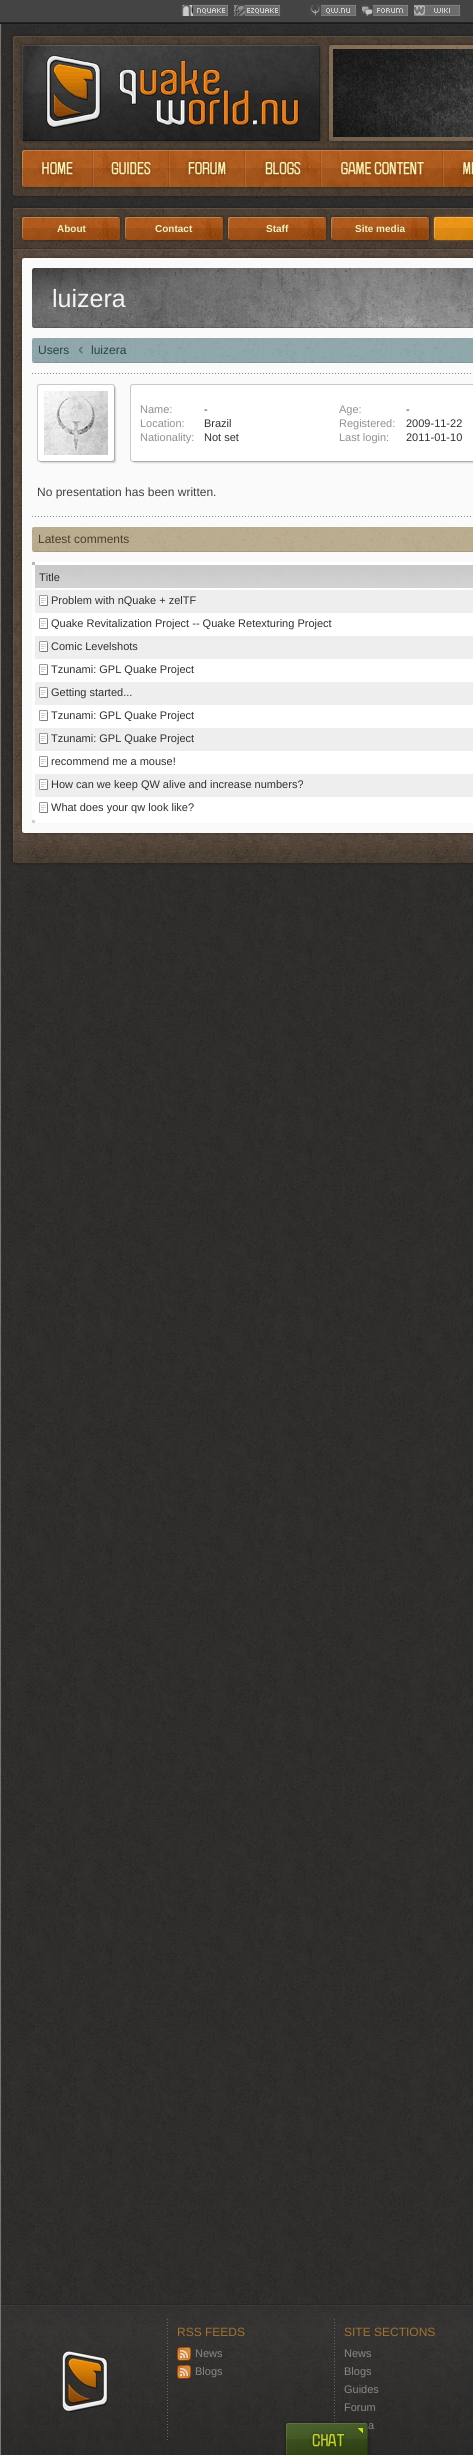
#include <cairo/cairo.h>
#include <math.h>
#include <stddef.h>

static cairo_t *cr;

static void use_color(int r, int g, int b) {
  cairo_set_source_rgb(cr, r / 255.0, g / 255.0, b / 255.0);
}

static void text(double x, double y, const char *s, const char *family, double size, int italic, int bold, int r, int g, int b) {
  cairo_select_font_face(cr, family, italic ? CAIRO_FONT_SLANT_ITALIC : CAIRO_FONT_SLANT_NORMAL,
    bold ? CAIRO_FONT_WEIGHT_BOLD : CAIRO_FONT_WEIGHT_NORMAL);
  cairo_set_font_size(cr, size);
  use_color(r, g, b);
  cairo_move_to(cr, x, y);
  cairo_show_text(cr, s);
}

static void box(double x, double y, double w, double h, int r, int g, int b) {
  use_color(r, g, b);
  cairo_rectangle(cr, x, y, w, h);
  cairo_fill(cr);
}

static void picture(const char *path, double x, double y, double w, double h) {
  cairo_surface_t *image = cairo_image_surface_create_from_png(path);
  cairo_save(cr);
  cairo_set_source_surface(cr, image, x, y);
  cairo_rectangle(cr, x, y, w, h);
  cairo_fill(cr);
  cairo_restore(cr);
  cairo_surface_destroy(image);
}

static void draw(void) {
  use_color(255, 255, 255);
  cairo_paint(cr);
  picture("img_01.png", 0, 0, 473, 24);
  picture("img_02.png", 0, 24, 1, 2431);
  picture("img_03.png", 1, 24, 472, 2280);
  picture("img_04.png", 4, 24, 464, 1);
  picture("img_05.png", 8, 30, 465, 15);
  picture("img_06.png", 7, 45, 15, 96);
  picture("img_07.png", 22, 45, 298, 96);
  picture("img_08.png", 320, 45, 9, 96);
  picture("img_09.png", 329, 45, 144, 96);
  picture("img_10.png", 333, 49, 140, 88);
  picture("img_11.png", 10, 141, 463, 5);
  picture("img_12.png", 7, 146, 466, 45);
  picture("img_13.png", 39, 150, 54, 37);
  picture("img_14.png", 93, 150, 76, 37);
  picture("img_15.png", 169, 150, 76, 37);
  picture("img_16.png", 245, 150, 76, 37);
  picture("img_17.png", 321, 150, 122, 37);
  picture("img_18.png", 443, 150, 30, 37);
  picture("img_19.png", 7, 191, 466, 11);
  picture("img_20.png", 7, 202, 466, 52);
  picture("img_21.png", 20, 215, 102, 27);
  picture("img_21.png", 123, 215, 102, 27);
  picture("img_21.png", 226, 215, 102, 27);
  picture("img_21.png", 329, 215, 102, 27);
  picture("img_22.png", 432, 215, 41, 27);
  picture("img_23.png", 7, 254, 466, 8);
  picture("img_24.png", 7, 262, 466, 567);
  picture("img_25.png", 32, 268, 441, 60);
  picture("img_26.png", 32, 338, 2, 25);
  picture("img_27.png", 34, 338, 439, 25);
  picture("img_28.png", 78, 346, 5, 8);
  picture("img_29.png", 32, 373, 441, 1);
  picture("img_30.png", 37, 384, 80, 80);
  picture("img_31.png", 130, 384, 343, 80);
  picture("img_29.png", 32, 516, 441, 1);
  picture("img_32.png", 32, 527, 2, 25);
  picture("img_33.png", 34, 527, 439, 25);
  box(32, 562, 3, 3, 182, 182, 182);
  box(35, 562, 438, 3, 255, 255, 255);
  box(32, 565, 3, 255, 255, 255, 255);
  box(35, 588, 438, 235, 255, 255, 255);
  picture("img_34.png", 35, 565, 438, 23);
  box(35, 590, 438, 23, 238, 238, 238);
  picture("img_35.png", 39, 595, 9, 11);
  picture("img_35.png", 39, 618, 9, 11);
  box(35, 636, 438, 23, 238, 238, 238);
  picture("img_35.png", 39, 641, 9, 11);
  picture("img_35.png", 39, 664, 9, 11);
  box(35, 682, 438, 23, 238, 238, 238);
  picture("img_35.png", 39, 687, 9, 11);
  picture("img_35.png", 39, 710, 9, 11);
  box(35, 728, 438, 23, 238, 238, 238);
  picture("img_35.png", 39, 733, 9, 11);
  picture("img_35.png", 39, 756, 9, 11);
  box(35, 774, 438, 23, 238, 238, 238);
  picture("img_35.png", 39, 779, 9, 11);
  picture("img_35.png", 39, 802, 9, 11);
  box(32, 820, 3, 3, 209, 209, 209);
  picture("img_36.png", 7, 829, 466, 40);
  picture("img_37.png", 1, 2304, 472, 151);
  picture("img_38.png", 62, 2351, 46, 62);
  picture("img_39.png", 167, 2319, 1, 121);
  picture("img_40.png", 177, 2347, 14, 14);
  picture("img_41.png", 177, 2365, 14, 14);
  picture("img_42.png", 334, 2319, 1, 103);
  text(57, 232, "About", "Liberation Sans", 10, 0, 1, 240, 240, 192);
  text(155, 232, "Contact", "Liberation Sans", 10, 0, 1, 240, 240, 192);
  text(266, 232, "Staff", "Liberation Sans", 10, 0, 1, 240, 240, 192);
  text(355, 232, "Site media", "Liberation Sans", 10, 0, 1, 240, 240, 192);
  text(52, 307, "luizera", "Liberation Sans", 25, 0, 0, 244, 244, 244);
  text(38, 354, "Users", "Liberation Sans", 12, 0, 0, 41, 67, 67);
  text(91, 354, "luizera", "Liberation Sans", 12, 0, 0, 41, 67, 67);
  text(140, 413, "Name:", "Liberation Sans", 11, 0, 0, 144, 144, 144);
  text(140, 427, "Location:", "Liberation Sans", 11, 0, 0, 144, 144, 144);
  text(140, 441, "Nationality:", "Liberation Sans", 11, 0, 0, 144, 144, 144);
  text(204, 413, "-", "Liberation Sans", 11, 0, 0, 48, 48, 48);
  text(204, 427, "Brazil", "Liberation Sans", 11, 0, 0, 48, 48, 48);
  text(204, 441, "Not set", "Liberation Sans", 11, 0, 0, 48, 48, 48);
  text(339, 413, "Age:", "Liberation Sans", 11, 0, 0, 144, 144, 144);
  text(339, 427, "Registered:", "Liberation Sans", 11, 0, 0, 144, 144, 144);
  text(339, 441, "Last login:", "Liberation Sans", 11, 0, 0, 144, 144, 144);
  text(406, 413, "-", "Liberation Sans", 11, 0, 0, 48, 48, 48);
  text(406, 427, "2009-11-22", "Liberation Sans", 11, 0, 0, 48, 48, 48);
  text(406, 441, "2011-01-10", "Liberation Sans", 11, 0, 0, 48, 48, 48);
  text(37, 496, "No presentation has been written.", "Liberation Sans", 12, 0, 0, 64, 64, 64);
  text(38, 543, "Latest comments", "Liberation Sans", 12, 0, 0, 76, 62, 48);
  text(39, 581, "Title", "Liberation Sans", 11, 0, 0, 48, 48, 48);
  text(51, 604, "Problem with nQuake + zelTF", "Liberation Sans", 11, 0, 0, 48, 48, 48);
  text(51, 627, "Quake Revitalization Project -- Quake Retexturing Project", "Liberation Sans", 11, 0, 0, 48, 48, 48);
  text(51, 650, "Comic Levelshots", "Liberation Sans", 11, 0, 0, 48, 48, 48);
  text(51, 673, "Tzunami: GPL Quake Project", "Liberation Sans", 11, 0, 0, 48, 48, 48);
  text(51, 696, "Getting started...", "Liberation Sans", 11, 0, 0, 48, 48, 48);
  text(51, 719, "Tzunami: GPL Quake Project", "Liberation Sans", 11, 0, 0, 48, 48, 48);
  text(51, 742, "Tzunami: GPL Quake Project", "Liberation Sans", 11, 0, 0, 48, 48, 48);
  text(51, 765, "recommend me a mouse!", "Liberation Sans", 11, 0, 0, 48, 48, 48);
  text(51, 788, "How can we keep QW alive and increase numbers?", "Liberation Sans", 11, 0, 0, 48, 48, 48);
  text(51, 811, "What does your qw look like?", "Liberation Sans", 11, 0, 0, 48, 48, 48);
  text(177, 2336, "RSS FEEDS", "Liberation Sans", 12, 0, 0, 161, 114, 48);
  text(195, 2357, "News", "Liberation Sans", 11, 0, 0, 136, 136, 136);
  text(195, 2375, "Blogs", "Liberation Sans", 11, 0, 0, 136, 136, 136);
  text(344, 2336, "SITE SECTIONS", "Liberation Sans", 12, 0, 0, 161, 114, 48);
  text(344, 2357, "News", "Liberation Sans", 11, 0, 0, 136, 136, 136);
  text(344, 2375, "Blogs", "Liberation Sans", 11, 0, 0, 136, 136, 136);
  text(344, 2393, "Guides", "Liberation Sans", 11, 0, 0, 136, 136, 136);
  text(344, 2411, "Forum", "Liberation Sans", 11, 0, 0, 136, 136, 136);
  text(368, 2429, "a", "Liberation Sans", 11, 0, 0, 136, 136, 136);
  picture("img_43.png", 284, 2421, 87, 34);
}

int main(void) {
  cairo_surface_t *surface = cairo_image_surface_create(CAIRO_FORMAT_RGB24, 473, 2455);
  cr = cairo_create(surface);
  cairo_font_options_t *options = cairo_font_options_create();
  cairo_font_options_set_hint_metrics(options, CAIRO_HINT_METRICS_OFF);
  cairo_font_options_set_hint_style(options, CAIRO_HINT_STYLE_NONE);
  cairo_set_font_options(cr, options);
  cairo_set_miter_limit(cr, 4);
  draw();
  cairo_surface_write_to_png(surface, "out.png");
  cairo_font_options_destroy(options);
  cairo_destroy(cr);
  cairo_surface_destroy(surface);
  return 0;
}
